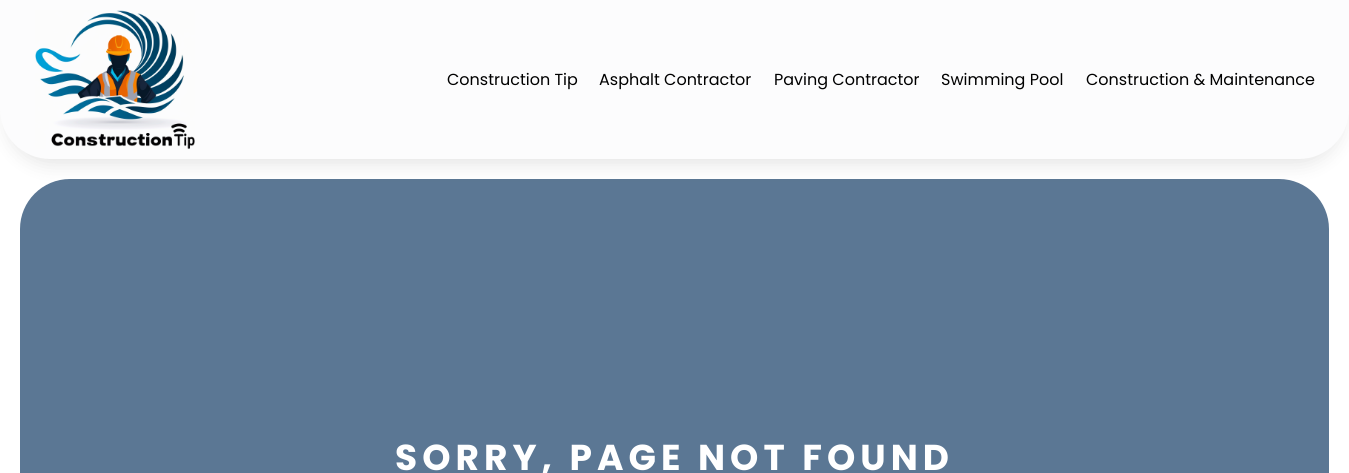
#include <cairo/cairo.h>
#include <math.h>
#include <stddef.h>

static cairo_t *cr;

static void use_color(int r, int g, int b) {
  cairo_set_source_rgb(cr, r / 255.0, g / 255.0, b / 255.0);
}

static void text(double x, double y, const char *s, const char *family, double size, int italic, int bold, int r, int g, int b) {
  cairo_select_font_face(cr, family, italic ? CAIRO_FONT_SLANT_ITALIC : CAIRO_FONT_SLANT_NORMAL,
    bold ? CAIRO_FONT_WEIGHT_BOLD : CAIRO_FONT_WEIGHT_NORMAL);
  cairo_set_font_size(cr, size);
  use_color(r, g, b);
  cairo_move_to(cr, x, y);
  cairo_show_text(cr, s);
}

static void spaced_text(double x, double y, const char *s, double letter, double word) {
  cairo_move_to(cr, x, y);
  while (*s) {
    char ch[5] = {0};
    int n = 0;
    do ch[n++] = *s++; while ((*s & 0xC0) == 0x80);
    cairo_show_text(cr, ch);
    cairo_rel_move_to(cr, letter + word * (*ch == ' '), 0);
  }
}

static void round_rect(double x, double y, double w, double h, double r) {
  cairo_new_sub_path(cr);
  cairo_arc(cr, x + w - r, y + h - r, r, 0, M_PI / 2);
  cairo_arc(cr, x + r, y + h - r, r, M_PI / 2, M_PI);
  cairo_arc(cr, x + r, y + r, r, M_PI, 1.5 * M_PI);
  cairo_arc(cr, x + w - r, y + r, r, 1.5 * M_PI, 2 * M_PI);
  cairo_close_path(cr);
}

static void shadow(double x, double y, double w, double h, double r, double blur, double alpha) {
  cairo_push_group_with_content(cr, CAIRO_CONTENT_ALPHA);
  cairo_set_operator(cr, CAIRO_OPERATOR_SOURCE);
  for (int i = 15; i >= -15 && fmin(w, h) + blur * i / 3 > 0; i -= 2) {
    double e = blur * i / 6;
    cairo_set_source_rgba(cr, 0, 0, 0, alpha * erfc((i - 1) / 8.5) / 2);
    round_rect(x - e, y - e, w + 2 * e, h + 2 * e, fmax(0, fmin(r + e + blur * .6, fmin(w, h) / 2 + e)));
    cairo_fill(cr);
  }
  cairo_pattern_t *soft = cairo_pop_group(cr);
  cairo_mask(cr, soft);
  cairo_pattern_destroy(soft);
}

static void picture(const char *path, double x, double y, double w, double h) {
  cairo_surface_t *image = cairo_image_surface_create_from_png(path);
  cairo_save(cr);
  cairo_set_source_surface(cr, image, x, y);
  cairo_rectangle(cr, x, y, w, h);
  cairo_fill(cr);
  cairo_restore(cr);
  cairo_surface_destroy(image);
}

static void draw(void) {
  use_color(255, 255, 255);
  cairo_paint(cr);
  use_color(91, 119, 148);
  round_rect(20, 179, 1309, 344, 50);
  cairo_fill(cr);
  use_color(0, 0, 0);
  shadow(6, 18, 1337, 147, 44, 9, 0.1);
  use_color(252, 252, 253);
  cairo_new_path(cr);
  cairo_move_to(cr, 0, 0);
  cairo_line_to(cr, 1349, 0);
  cairo_line_to(cr, 1349, 109);
  cairo_curve_to(cr, 1349, 136.5, 1326.5, 159, 1299, 159);
  cairo_line_to(cr, 50, 159);
  cairo_curve_to(cr, 22.5, 159, 0, 136.5, 0, 109);
  cairo_close_path(cr);
  cairo_fill(cr);
  picture("img_01.png", 35, 10, 160, 139);
  text(447, 85, "Construction Tip", "Poppins", 16, 0, 0, 0, 0, 0);
  text(599, 85, "Asphalt Contractor", "Poppins", 16, 0, 0, 0, 0, 0);
  text(774, 85, "Paving Contractor", "Poppins", 16, 0, 0, 0, 0, 0);
  text(941, 85, "Swimming Pool", "Poppins", 16, 0, 0, 0, 0, 0);
  text(1086, 85, "Construction & Maintenance", "Poppins", 16, 0, 0, 0, 0, 0);
  cairo_select_font_face(cr, "Poppins", CAIRO_FONT_SLANT_NORMAL, CAIRO_FONT_WEIGHT_BOLD);
  cairo_set_font_size(cr, 36);
  use_color(255, 255, 255);
  spaced_text(395, 470, "SORRY, PAGE NOT FOUND", 5, 0);
}

int main(void) {
  cairo_surface_t *surface = cairo_image_surface_create(CAIRO_FORMAT_RGB24, 1349, 473);
  cr = cairo_create(surface);
  cairo_font_options_t *options = cairo_font_options_create();
  cairo_font_options_set_hint_metrics(options, CAIRO_HINT_METRICS_OFF);
  cairo_font_options_set_hint_style(options, CAIRO_HINT_STYLE_NONE);
  cairo_set_font_options(cr, options);
  cairo_set_miter_limit(cr, 4);
  draw();
  cairo_surface_write_to_png(surface, "out.png");
  cairo_font_options_destroy(options);
  cairo_destroy(cr);
  cairo_surface_destroy(surface);
  return 0;
}
